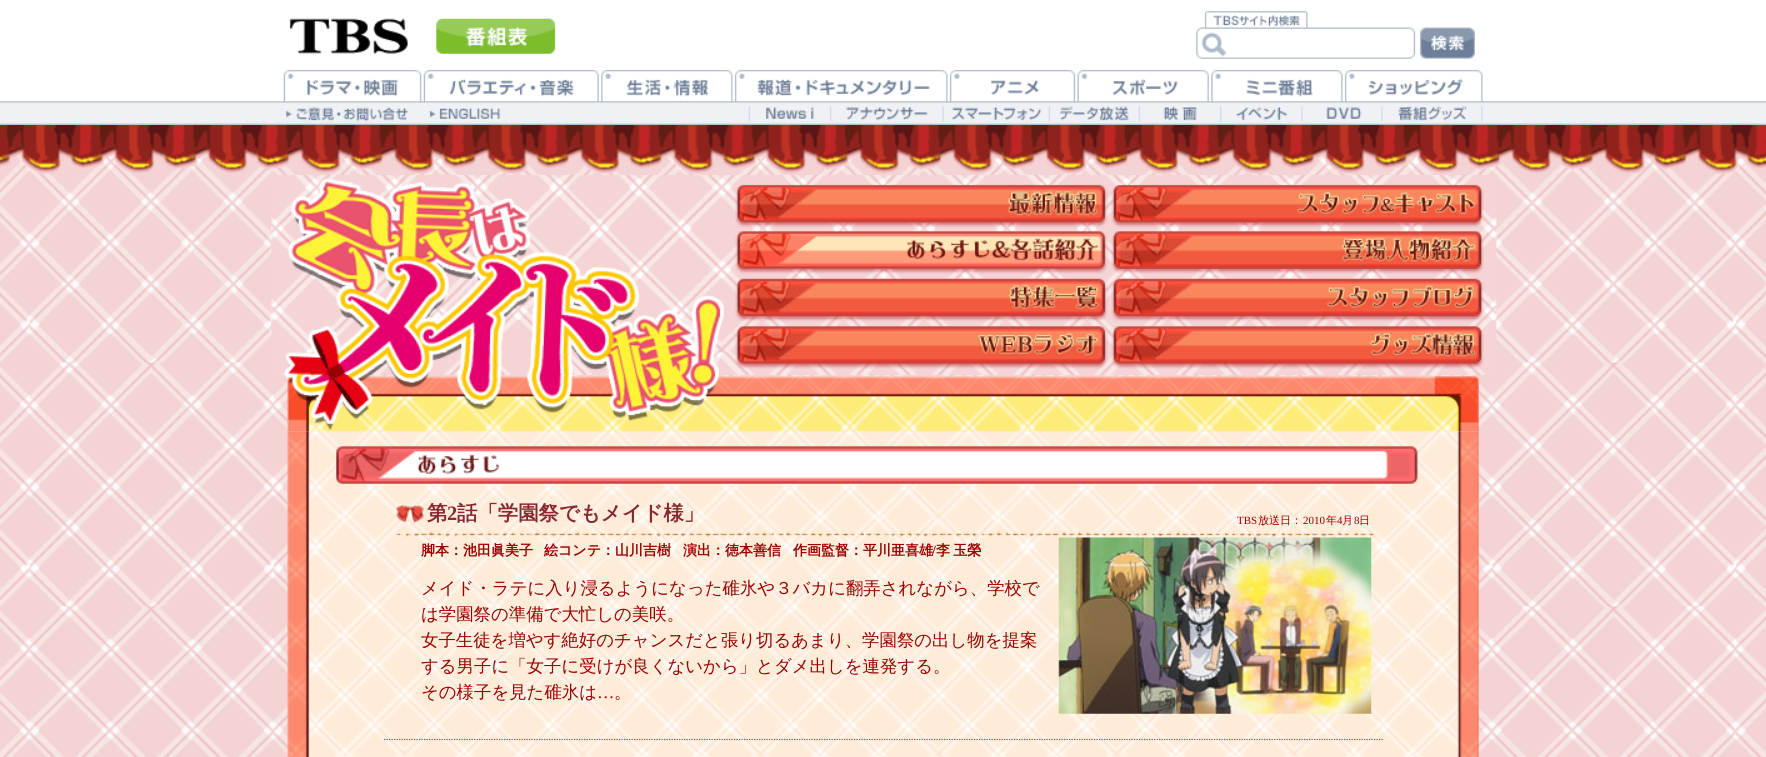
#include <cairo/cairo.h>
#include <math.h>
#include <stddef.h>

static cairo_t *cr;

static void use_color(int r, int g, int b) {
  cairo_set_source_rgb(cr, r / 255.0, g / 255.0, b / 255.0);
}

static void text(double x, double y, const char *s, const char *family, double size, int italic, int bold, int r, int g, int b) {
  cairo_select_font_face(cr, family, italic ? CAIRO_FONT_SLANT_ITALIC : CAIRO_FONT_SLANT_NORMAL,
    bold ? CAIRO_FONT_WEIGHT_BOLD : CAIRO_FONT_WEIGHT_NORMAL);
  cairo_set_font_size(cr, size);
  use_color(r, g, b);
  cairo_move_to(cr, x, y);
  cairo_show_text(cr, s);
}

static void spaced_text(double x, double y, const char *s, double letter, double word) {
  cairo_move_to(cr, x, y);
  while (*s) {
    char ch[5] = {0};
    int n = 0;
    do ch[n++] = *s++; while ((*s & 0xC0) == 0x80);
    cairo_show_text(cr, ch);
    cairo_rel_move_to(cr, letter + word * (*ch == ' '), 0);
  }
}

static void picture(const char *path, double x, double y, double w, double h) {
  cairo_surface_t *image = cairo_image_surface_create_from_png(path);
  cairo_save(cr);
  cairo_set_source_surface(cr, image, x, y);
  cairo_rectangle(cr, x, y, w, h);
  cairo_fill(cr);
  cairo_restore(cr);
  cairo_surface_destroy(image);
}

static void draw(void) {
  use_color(255, 255, 255);
  cairo_paint(cr);
  picture("img_01.png", 0, 154, 1766, 603);
  picture("img_02.png", 0, 101, 1766, 24);
  picture("img_03.png", 289, 18, 267, 36);
  picture("img_04.png", 1196, 11, 220, 48);
  picture("img_05.png", 1420, 27, 55, 32);
  picture("img_06.png", 271, 69, 1225, 56);
  picture("img_07.png", 0, 125, 1766, 49);
  picture("img_08.png", 271, 175, 463, 200);
  picture("img_09.png", 733, 175, 764, 200);
  picture("img_10.png", 1114, 187, 1, 33);
  picture("img_11.png", 1115, 186, 382, 39);
  picture("img_12.png", 733, 225, 382, 47);
  picture("img_13.png", 1115, 225, 382, 44);
  picture("img_14.png", 741, 281, 374, 38);
  picture("img_15.png", 1115, 280, 382, 39);
  picture("img_16.png", 285, 375, 1194, 57);
  picture("img_17.png", 287, 431, 1192, 326);
  picture("img_18.png", 336, 446, 1082, 38);
  picture("img_19.png", 396, 532, 980, 5);
  picture("img_20.png", 396, 505, 28, 19);
  picture("img_21.png", 1058, 537, 314, 177);
  cairo_new_path(cr);
  cairo_move_to(cr, 384, 739.5);
  cairo_line_to(cr, 1384, 739.5);
  use_color(105, 94, 98);
  cairo_set_line_width(cr, 1.2);
  cairo_set_dash(cr, (double[]){1.25, 1.25}, 2, 0);
  cairo_stroke(cr);
  text(427, 520, "第", "WenQuanYi Zen Hei", 20.4, 0, 1, 136, 40, 47);
  text(447, 520, "2", "Liberation Serif", 20.4, 0, 1, 136, 40, 47);
  text(457, 520, "話「学園祭でもメイド様」", "WenQuanYi Zen Hei", 20.4, 0, 1, 136, 40, 47);
  text(1237, 524, "TBS", "Liberation Serif", 11, 0, 0, 153, 0, 0);
  text(1258, 524, "放送日：", "WenQuanYi Zen Hei Medium", 11, 0, 0, 153, 0, 0);
  text(1303, 524, "2010", "Liberation Serif", 11, 0, 0, 153, 0, 0);
  text(1326, 524, "年", "WenQuanYi Zen Hei Medium", 11, 0, 0, 153, 0, 0);
  text(1337, 524, "4", "Liberation Serif", 11, 0, 0, 153, 0, 0);
  text(1342, 524, "月", "WenQuanYi Zen Hei Medium", 11, 0, 0, 153, 0, 0);
  text(1354, 524, "8", "Liberation Serif", 11, 0, 0, 153, 0, 0);
  text(1359, 524, "日", "WenQuanYi Zen Hei Medium", 11, 0, 0, 153, 0, 0);
  text(421, 555, "脚本：池田眞美子", "WenQuanYi Zen Hei", 14, 0, 1, 153, 0, 0);
  text(544, 555, "絵コンテ：山川吉樹", "WenQuanYi Zen Hei", 14, 0, 1, 153, 0, 0);
  text(683, 555, "演出：徳本善信", "WenQuanYi Zen Hei", 14, 0, 1, 153, 0, 0);
  text(793, 555, "作画監督：平川亜喜雄", "WenQuanYi Zen Hei", 14, 0, 1, 153, 0, 0);
  text(932, 555, "/", "Liberation Serif", 14, 0, 1, 153, 0, 0);
  cairo_select_font_face(cr, "WenQuanYi Zen Hei", CAIRO_FONT_SLANT_NORMAL, CAIRO_FONT_WEIGHT_BOLD);
  spaced_text(936, 555, "李 玉榮", 0, -1);
  text(421, 594, "メイド・ラテに入り浸るようになった碓氷や３バカに翻弄されながら、学校で", "WenQuanYi Zen Hei Medium", 17.4, 0, 0, 153, 0, 0);
  text(421, 620, "は学園祭の準備で大忙しの美咲。", "WenQuanYi Zen Hei Medium", 17.4, 0, 0, 153, 0, 0);
  text(421, 646, "女子生徒を増やす絶好のチャンスだと張り切るあまり、学園祭の出し物を提案", "WenQuanYi Zen Hei Medium", 17.4, 0, 0, 153, 0, 0);
  text(421, 672, "する男子に「女子に受けが良くないから」とダメ出しを連発する。", "WenQuanYi Zen Hei Medium", 17.4, 0, 0, 153, 0, 0);
  text(421, 698, "その様子を見た碓氷は", "WenQuanYi Zen Hei Medium", 17.4, 0, 0, 153, 0, 0);
  text(597, 698, "…", "Liberation Serif", 17.4, 0, 0, 153, 0, 0);
  text(614, 698, "。", "WenQuanYi Zen Hei Medium", 17.4, 0, 0, 153, 0, 0);
}

int main(void) {
  cairo_surface_t *surface = cairo_image_surface_create(CAIRO_FORMAT_RGB24, 1766, 757);
  cr = cairo_create(surface);
  cairo_font_options_t *options = cairo_font_options_create();
  cairo_font_options_set_hint_metrics(options, CAIRO_HINT_METRICS_OFF);
  cairo_font_options_set_hint_style(options, CAIRO_HINT_STYLE_NONE);
  cairo_set_font_options(cr, options);
  cairo_set_miter_limit(cr, 4);
  draw();
  cairo_surface_write_to_png(surface, "out.png");
  cairo_font_options_destroy(options);
  cairo_destroy(cr);
  cairo_surface_destroy(surface);
  return 0;
}
